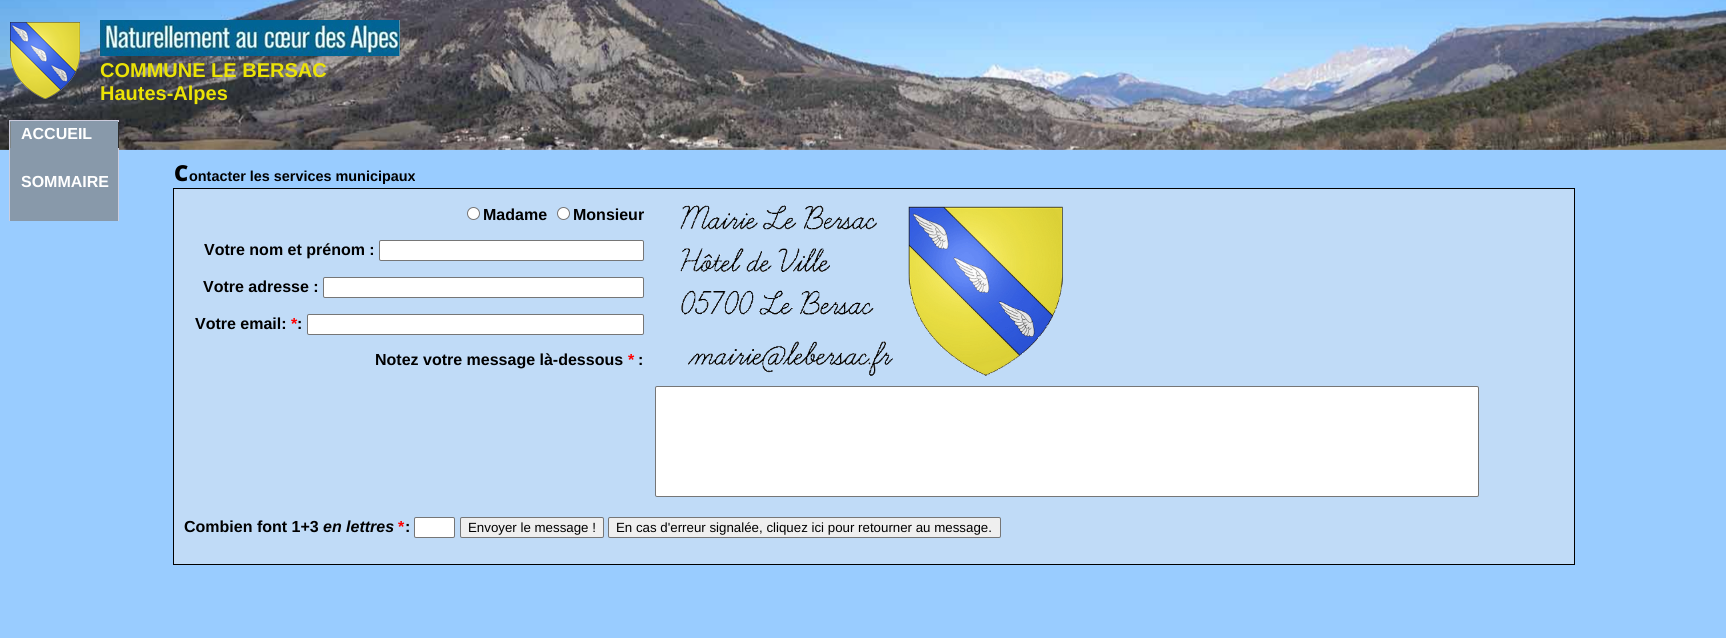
#include <cairo/cairo.h>
#include <math.h>
#include <stddef.h>

static cairo_t *cr;

static void use_color(int r, int g, int b) {
  cairo_set_source_rgb(cr, r / 255.0, g / 255.0, b / 255.0);
}

static void text(double x, double y, const char *s, const char *family, double size, int italic, int bold, int r, int g, int b) {
  cairo_select_font_face(cr, family, italic ? CAIRO_FONT_SLANT_ITALIC : CAIRO_FONT_SLANT_NORMAL,
    bold ? CAIRO_FONT_WEIGHT_BOLD : CAIRO_FONT_WEIGHT_NORMAL);
  cairo_set_font_size(cr, size);
  use_color(r, g, b);
  cairo_move_to(cr, x, y);
  cairo_show_text(cr, s);
}

static void box(double x, double y, double w, double h, int r, int g, int b) {
  use_color(r, g, b);
  cairo_rectangle(cr, x, y, w, h);
  cairo_fill(cr);
}

static void round_rect(double x, double y, double w, double h, double r) {
  cairo_new_sub_path(cr);
  cairo_arc(cr, x + w - r, y + h - r, r, 0, M_PI / 2);
  cairo_arc(cr, x + r, y + h - r, r, M_PI / 2, M_PI);
  cairo_arc(cr, x + r, y + r, r, M_PI, 1.5 * M_PI);
  cairo_arc(cr, x + w - r, y + r, r, 1.5 * M_PI, 2 * M_PI);
  cairo_close_path(cr);
}

static void picture(const char *path, double x, double y, double w, double h) {
  cairo_surface_t *image = cairo_image_surface_create_from_png(path);
  cairo_save(cr);
  cairo_set_source_surface(cr, image, x, y);
  cairo_rectangle(cr, x, y, w, h);
  cairo_fill(cr);
  cairo_restore(cr);
  cairo_surface_destroy(image);
}

static void draw(void) {
  use_color(153, 204, 255);
  cairo_paint(cr);
  picture("img_01.png", 0, 0, 1726, 150);
  picture("img_02.png", 10, 22, 70, 77);
  picture("img_03.png", 100, 20, 300, 36);
  box(10, 121, 108, 100, 136, 153, 170);
  box(9, 120, 110, 1, 204, 204, 221);
  box(118, 120, 1, 101, 204, 204, 221);
  box(9, 120, 1, 101, 204, 204, 221);
  box(118, 122, 1, 26, 45, 45, 45);
  box(10, 122, 1, 26, 126, 133, 134);
  use_color(192, 219, 247);
  cairo_rectangle(cr, 173.5, 188.5, 1401, 376);
  cairo_fill_preserve(cr);
  use_color(0, 0, 0);
  cairo_set_line_width(cr, 1);
  cairo_stroke(cr);
  use_color(255, 255, 255);
  cairo_arc(cr, 473.5, 213.5, 6, 0, 2 * M_PI);
  cairo_fill_preserve(cr);
  use_color(118, 118, 118);
  cairo_stroke(cr);
  use_color(255, 255, 255);
  cairo_arc(cr, 563.5, 213.5, 6, 0, 2 * M_PI);
  cairo_fill_preserve(cr);
  use_color(118, 118, 118);
  cairo_stroke(cr);
  use_color(255, 255, 255);
  round_rect(379.5, 240.5, 264, 20, 1.5);
  cairo_fill_preserve(cr);
  use_color(118, 118, 118);
  cairo_stroke(cr);
  use_color(255, 255, 255);
  round_rect(323.5, 277.5, 320, 20, 1.5);
  cairo_fill_preserve(cr);
  use_color(118, 118, 118);
  cairo_stroke(cr);
  use_color(255, 255, 255);
  round_rect(307.5, 314.5, 336, 20, 1.5);
  cairo_fill_preserve(cr);
  use_color(118, 118, 118);
  cairo_stroke(cr);
  picture("img_04.png", 680, 205, 383, 171);
  use_color(255, 255, 255);
  round_rect(655.5, 386.5, 823, 110, 1.5);
  cairo_fill_preserve(cr);
  use_color(118, 118, 118);
  cairo_stroke(cr);
  use_color(255, 255, 255);
  round_rect(414.5, 517.5, 40, 20, 1.5);
  cairo_fill_preserve(cr);
  use_color(118, 118, 118);
  cairo_stroke(cr);
  use_color(239, 239, 239);
  round_rect(460.5, 517.5, 143, 20, 1.5);
  cairo_fill_preserve(cr);
  use_color(118, 118, 118);
  cairo_stroke(cr);
  use_color(239, 239, 239);
  round_rect(608.5, 517.5, 392, 20, 1.5);
  cairo_fill_preserve(cr);
  use_color(118, 118, 118);
  cairo_stroke(cr);
  text(100, 77, "COMMUNE LE BERSAC", "Liberation Sans", 20, 0, 1, 235, 227, 6);
  text(100, 100, "Hautes-Alpes", "Liberation Sans", 20, 0, 1, 235, 227, 6);
  text(21, 139, "ACCUEIL", "Liberation Sans", 16, 0, 1, 255, 255, 255);
  text(21, 187, "SOMMAIRE", "Liberation Sans", 16, 0, 1, 255, 255, 255);
  text(174, 181, "C", "Noto Sans Black", 22, 0, 0, 0, 0, 0);
  text(189, 181, "ontacter les services municipaux", "Liberation Sans", 14.4, 0, 1, 0, 0, 0);
  text(483, 220, "Madame", "Liberation Sans", 16, 0, 1, 0, 0, 0);
  text(573, 220, "Monsieur", "Liberation Sans", 16, 0, 1, 0, 0, 0);
  text(204, 255, "Votre nom et prénom :", "Liberation Sans", 16, 0, 1, 0, 0, 0);
  text(203, 292, "Votre adresse :", "Liberation Sans", 16, 0, 1, 0, 0, 0);
  text(195, 329, "Votre email:", "Liberation Sans", 16, 0, 1, 0, 0, 0);
  text(291, 329, "*", "Liberation Sans", 16, 0, 1, 255, 0, 0);
  text(297, 329, ":", "Liberation Sans", 16, 0, 1, 0, 0, 0);
  text(375, 365, "Notez votre message là-dessous", "Liberation Sans", 16, 0, 1, 0, 0, 0);
  text(628, 365, "*", "Liberation Sans", 16, 0, 1, 255, 0, 0);
  text(638, 365, ":", "Liberation Sans", 16, 0, 1, 0, 0, 0);
  text(184, 532, "Combien font 1+3", "Liberation Sans", 16, 0, 1, 0, 0, 0);
  text(323, 532, "en lettres", "Liberation Sans", 16, 1, 1, 0, 0, 0);
  text(398, 532, "*", "Liberation Sans", 16, 0, 1, 255, 0, 0);
  text(405, 532, ":", "Liberation Sans", 16, 0, 1, 0, 0, 0);
  text(468, 532, "Envoyer le message !", "Liberation Sans", 13.3, 0, 0, 0, 0, 0);
  text(616, 532, "En cas d'erreur signalée, cliquez ici pour retourner au message.", "Liberation Sans", 13.3, 0, 0, 0, 0, 0);
}

int main(void) {
  cairo_surface_t *surface = cairo_image_surface_create(CAIRO_FORMAT_RGB24, 1726, 638);
  cr = cairo_create(surface);
  cairo_font_options_t *options = cairo_font_options_create();
  cairo_font_options_set_hint_metrics(options, CAIRO_HINT_METRICS_OFF);
  cairo_font_options_set_hint_style(options, CAIRO_HINT_STYLE_NONE);
  cairo_set_font_options(cr, options);
  cairo_set_miter_limit(cr, 4);
  draw();
  cairo_surface_write_to_png(surface, "out.png");
  cairo_font_options_destroy(options);
  cairo_destroy(cr);
  cairo_surface_destroy(surface);
  return 0;
}
